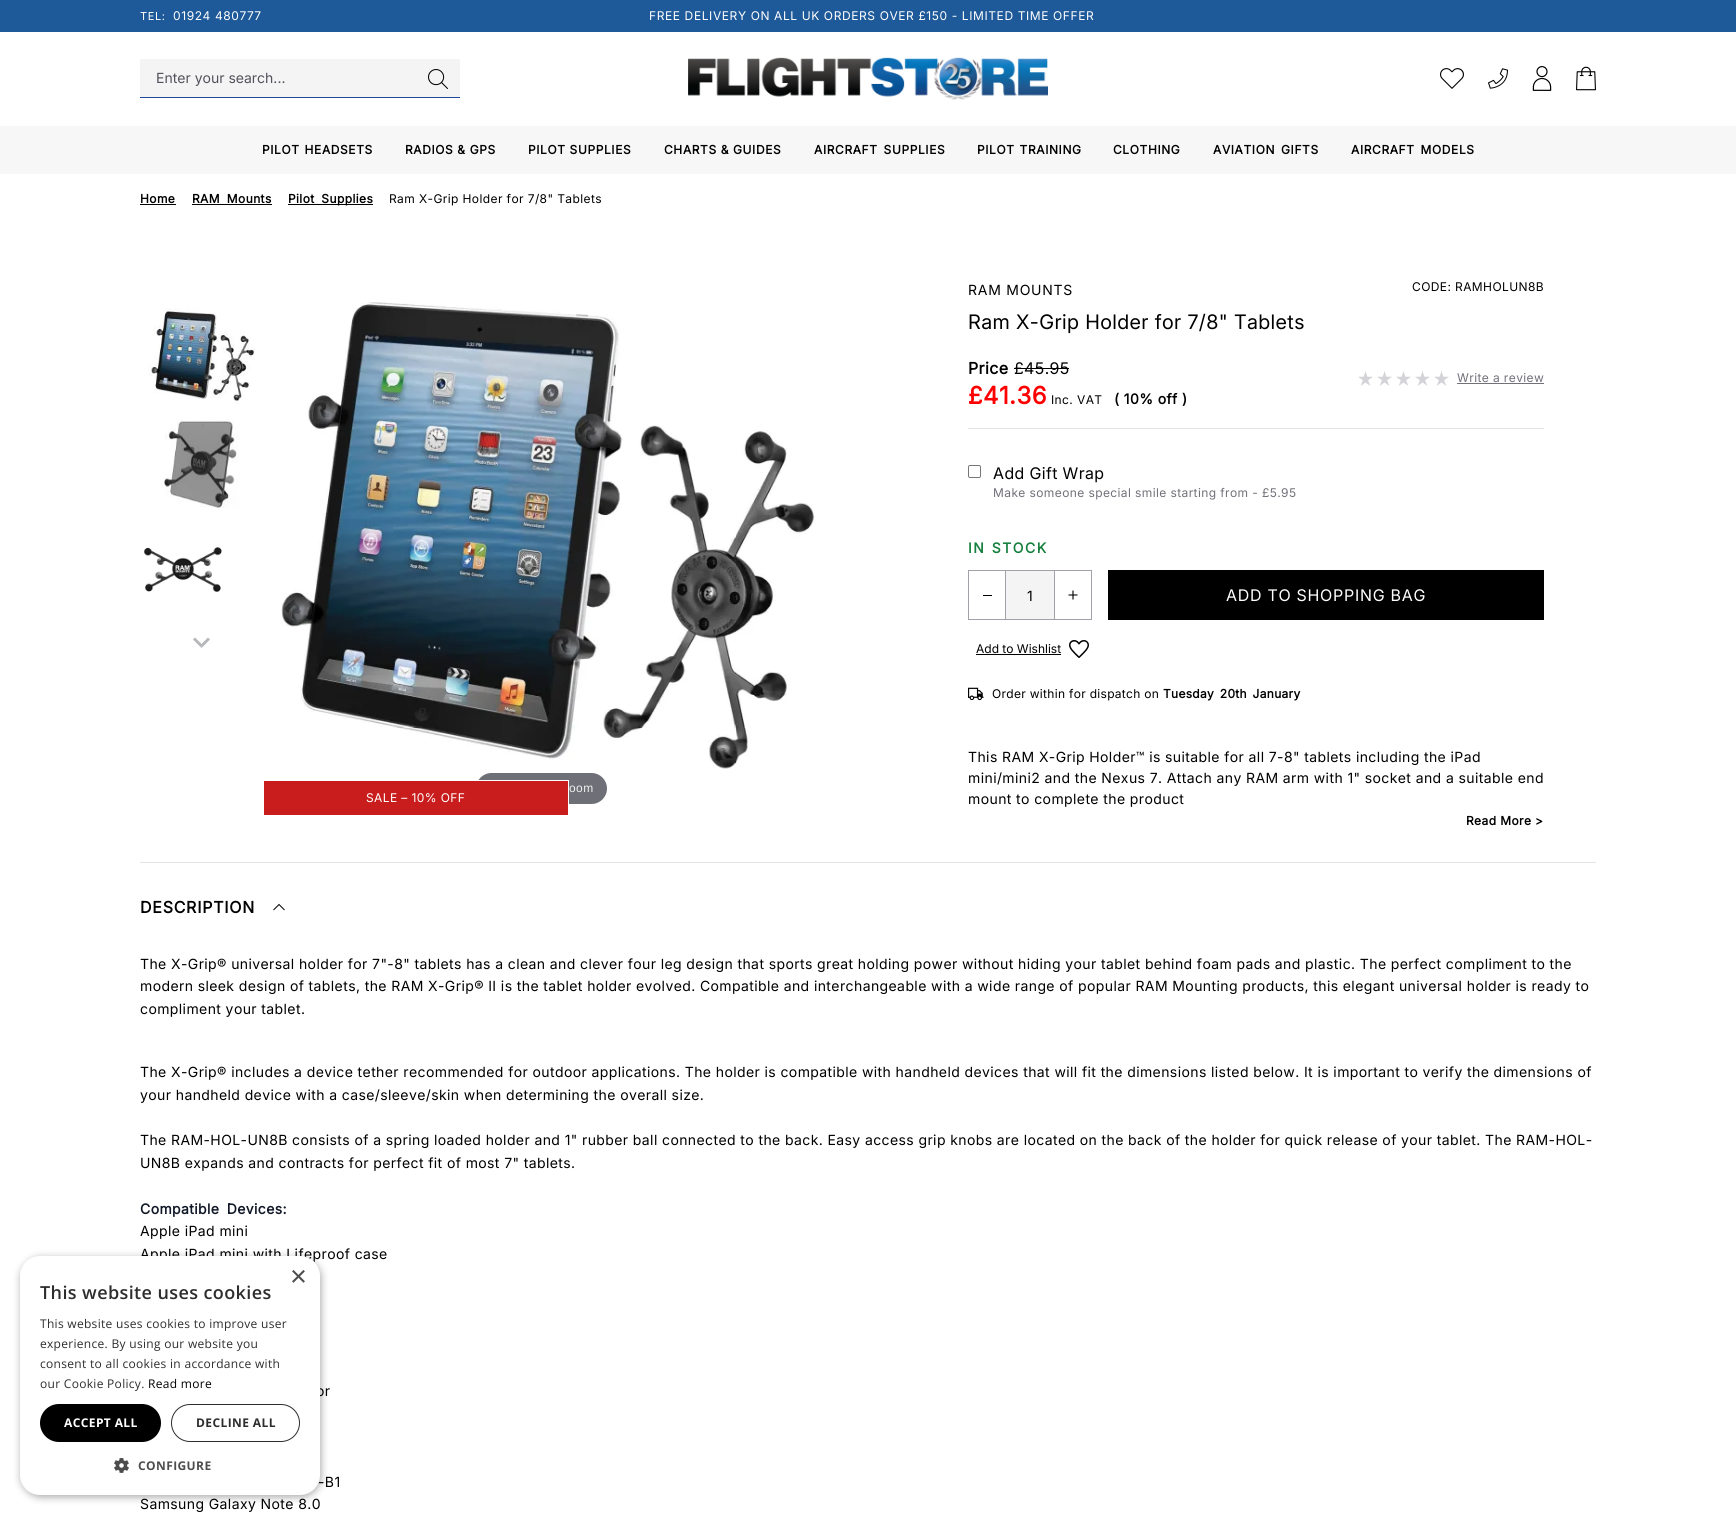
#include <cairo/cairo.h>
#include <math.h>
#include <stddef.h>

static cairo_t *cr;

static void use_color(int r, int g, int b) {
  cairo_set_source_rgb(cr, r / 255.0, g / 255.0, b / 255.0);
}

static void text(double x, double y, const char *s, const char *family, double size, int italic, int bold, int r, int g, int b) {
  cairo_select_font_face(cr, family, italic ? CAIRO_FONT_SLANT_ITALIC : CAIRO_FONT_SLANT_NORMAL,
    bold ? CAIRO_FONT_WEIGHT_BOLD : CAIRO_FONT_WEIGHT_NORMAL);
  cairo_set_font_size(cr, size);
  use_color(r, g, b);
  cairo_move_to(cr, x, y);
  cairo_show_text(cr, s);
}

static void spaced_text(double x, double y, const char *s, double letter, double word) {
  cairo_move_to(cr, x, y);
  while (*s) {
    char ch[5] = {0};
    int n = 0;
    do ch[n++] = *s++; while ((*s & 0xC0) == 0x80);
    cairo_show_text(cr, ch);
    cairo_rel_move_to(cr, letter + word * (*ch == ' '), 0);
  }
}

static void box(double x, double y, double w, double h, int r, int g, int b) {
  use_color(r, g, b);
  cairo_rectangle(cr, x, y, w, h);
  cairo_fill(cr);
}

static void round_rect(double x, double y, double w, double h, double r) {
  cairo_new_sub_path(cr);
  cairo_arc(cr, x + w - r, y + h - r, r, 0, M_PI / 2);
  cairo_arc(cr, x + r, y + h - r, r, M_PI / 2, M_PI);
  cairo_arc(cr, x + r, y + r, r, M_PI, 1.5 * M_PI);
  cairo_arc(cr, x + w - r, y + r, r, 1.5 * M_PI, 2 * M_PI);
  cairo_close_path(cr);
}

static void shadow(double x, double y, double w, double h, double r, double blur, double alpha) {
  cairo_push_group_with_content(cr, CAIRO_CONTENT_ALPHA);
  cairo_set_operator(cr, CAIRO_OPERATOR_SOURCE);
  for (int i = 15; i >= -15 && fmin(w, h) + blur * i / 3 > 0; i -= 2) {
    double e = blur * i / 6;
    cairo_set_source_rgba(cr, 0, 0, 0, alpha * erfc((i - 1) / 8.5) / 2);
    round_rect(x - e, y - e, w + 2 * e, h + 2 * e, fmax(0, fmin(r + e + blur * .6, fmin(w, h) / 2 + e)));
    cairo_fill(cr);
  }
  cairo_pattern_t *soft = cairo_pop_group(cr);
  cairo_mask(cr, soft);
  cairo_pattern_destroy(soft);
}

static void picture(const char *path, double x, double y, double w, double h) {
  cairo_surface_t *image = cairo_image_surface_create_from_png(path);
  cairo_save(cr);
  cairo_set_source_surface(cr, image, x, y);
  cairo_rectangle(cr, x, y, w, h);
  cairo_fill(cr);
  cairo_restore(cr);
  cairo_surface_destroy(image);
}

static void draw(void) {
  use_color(255, 255, 255);
  cairo_paint(cr);
  box(0, 0, 1736, 32, 30, 89, 153);
  box(140, 59, 320, 38, 244, 244, 245);
  box(140, 97, 320, 1, 28, 72, 151);
  picture("img_01.png", 428, 69, 20, 20);
  picture("img_02.png", 688, 57, 360, 43);
  picture("img_03.png", 1440, 68, 24, 21);
  picture("img_04.png", 1488, 68, 20, 21);
  picture("img_05.png", 1532, 66, 20, 25);
  picture("img_06.png", 1576, 66, 20, 25);
  box(0, 126, 1736, 48, 248, 247, 247);
  box(140, 204, 36, 1, 0, 0, 0);
  box(192, 204, 80, 1, 0, 0, 0);
  box(288, 204, 85, 1, 0, 0, 0);
  picture("img_07.png", 148, 308, 107, 96);
  picture("img_08.png", 164, 419, 75, 89);
  picture("img_09.png", 144, 547, 78, 45);
  use_color(181, 182, 185);
  cairo_new_path(cr);
  cairo_move_to(cr, 201.5, 648);
  cairo_line_to(cr, 193, 639.5);
  cairo_line_to(cr, 195, 637.5);
  cairo_line_to(cr, 201.5, 644);
  cairo_close_path(cr);
  cairo_fill(cr);
  cairo_set_source_rgba(cr, 0.514, 0.522, 0.545, 0.6);
  cairo_new_path(cr);
  cairo_move_to(cr, 210, 639.5);
  cairo_line_to(cr, 201.5, 648);
  cairo_line_to(cr, 201.5, 644);
  cairo_line_to(cr, 208, 637.5);
  cairo_close_path(cr);
  cairo_fill(cr);
  picture("img_10.png", 281, 302, 534, 467);
  use_color(111, 112, 119);
  round_rect(476, 773, 131, 31, 15.5);
  cairo_fill(cr);
  use_color(201, 29, 29);
  cairo_rectangle(cr, 263.5, 780.5, 305, 35);
  cairo_fill_preserve(cr);
  use_color(255, 255, 255);
  cairo_set_line_width(cr, 1);
  cairo_stroke(cr);
  box(968, 428, 576, 1, 228, 228, 231);
  box(1014, 368, 55, 1, 0, 0, 0);
  picture("img_11.png", 1358, 371, 15, 15);
  picture("img_11.png", 1377, 371, 15, 15);
  picture("img_11.png", 1396, 371, 15, 15);
  picture("img_11.png", 1415, 371, 15, 15);
  picture("img_11.png", 1434, 371, 15, 15);
  box(1457, 383, 87, 1, 113, 113, 122);
  round_rect(968.5, 465.5, 12, 12, 1.5);
  use_color(118, 118, 118);
  cairo_stroke(cr);
  cairo_rectangle(cr, 968.5, 570.5, 37, 49);
  use_color(161, 161, 170);
  cairo_stroke(cr);
  box(983, 595, 9, 1, 0, 0, 0);
  box(1006, 571, 48, 48, 244, 244, 245);
  box(1006, 570, 48, 1, 161, 161, 170);
  box(1006, 619, 48, 1, 161, 161, 170);
  cairo_rectangle(cr, 1054.5, 570.5, 37, 49);
  cairo_stroke(cr);
  picture("img_12.png", 1068, 590, 10, 10);
  box(1108, 570, 436, 50, 0, 0, 0);
  box(976, 654, 85, 1, 0, 0, 0);
  picture("img_13.png", 1069, 640, 20, 18);
  picture("img_14.png", 968, 687, 16, 14);
  box(140, 862, 1456, 1, 228, 228, 231);
  cairo_new_path(cr);
  cairo_move_to(cr, 284.5, 910);
  cairo_line_to(cr, 279, 904.5);
  cairo_line_to(cr, 273.5, 910);
  use_color(0, 0, 0);
  cairo_stroke(cr);
  use_color(0, 0, 0);
  shadow(21, 1258, 300, 239, 20, 4, 0.35);
  cairo_select_font_face(cr, "Inter", CAIRO_FONT_SLANT_NORMAL, CAIRO_FONT_WEIGHT_NORMAL);
  cairo_set_font_size(cr, 11);
  use_color(255, 255, 255);
  spaced_text(140, 20, "TEL:", 0.6, 0);
  cairo_set_font_size(cr, 12);
  spaced_text(173, 20, "01924 480777", 0.6, 0);
  spaced_text(649, 20, "FREE DELIVERY ON ALL UK ORDERS OVER £150 - LIMITED TIME OFFER", 0.6, 0);
  text(156, 83, "Enter your search...", "Inter", 14, 0, 0, 82, 82, 91);
  cairo_select_font_face(cr, "Inter", CAIRO_FONT_SLANT_NORMAL, CAIRO_FONT_WEIGHT_BOLD);
  cairo_set_font_size(cr, 12);
  use_color(0, 0, 0);
  spaced_text(262, 154, "PILOT HEADSETS", 0.6, 1);
  spaced_text(405, 154, "RADIOS & GPS", 0.6, 0);
  spaced_text(528, 154, "PILOT SUPPLIES", 0.6, 0);
  spaced_text(664, 154, "CHARTS & GUIDES", 0.6, 0);
  spaced_text(814, 154, "AIRCRAFT SUPPLIES", 0.6, 2);
  spaced_text(977, 154, "PILOT TRAINING", 0.6, 1);
  spaced_text(1113, 154, "CLOTHING", 0.6, 0);
  spaced_text(1213, 154, "AVIATION GIFTS", 0.6, 2);
  spaced_text(1351, 154, "AIRCRAFT MODELS", 0.6, 2);
  spaced_text(140, 203, "Home", 0.4, 0);
  spaced_text(192, 203, "RAM Mounts", 0.4, 3);
  spaced_text(288, 203, "Pilot Supplies", 0.4, 3);
  cairo_select_font_face(cr, "Inter", CAIRO_FONT_SLANT_NORMAL, CAIRO_FONT_WEIGHT_NORMAL);
  spaced_text(389, 203, "Ram X-Grip Holder for 7/8\" Tablets", 0.4, 0);
  cairo_select_font_face(cr, "Liberation Sans", CAIRO_FONT_SLANT_NORMAL, CAIRO_FONT_WEIGHT_NORMAL);
  use_color(238, 238, 238);
  spaced_text(569, 792, "oom", 0.4, 0);
  cairo_select_font_face(cr, "Inter", CAIRO_FONT_SLANT_NORMAL, CAIRO_FONT_WEIGHT_NORMAL);
  use_color(255, 255, 255);
  spaced_text(366, 802, "SALE – 10% OFF", 0.4, 0);
  cairo_set_font_size(cr, 14);
  use_color(0, 0, 0);
  spaced_text(968, 295, "RAM MOUNTS", 0.75, 0);
  cairo_set_font_size(cr, 12);
  spaced_text(1412, 291, "CODE: RAMHOLUN8B", 0.4, 0);
  cairo_select_font_face(cr, "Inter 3", CAIRO_FONT_SLANT_NORMAL, CAIRO_FONT_WEIGHT_NORMAL);
  cairo_set_font_size(cr, 20);
  spaced_text(968, 329, "Ram X-Grip Holder for 7/8\" Tablets", 0.4, 0);
  cairo_select_font_face(cr, "Inter", CAIRO_FONT_SLANT_NORMAL, CAIRO_FONT_WEIGHT_BOLD);
  cairo_set_font_size(cr, 16);
  spaced_text(968, 374, "Price", 0.4, 0);
  cairo_select_font_face(cr, "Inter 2", CAIRO_FONT_SLANT_NORMAL, CAIRO_FONT_WEIGHT_NORMAL);
  spaced_text(1014, 374, "£45.95", 0.4, 0);
  cairo_select_font_face(cr, "Inter", CAIRO_FONT_SLANT_NORMAL, CAIRO_FONT_WEIGHT_BOLD);
  cairo_set_font_size(cr, 24);
  use_color(255, 0, 0);
  spaced_text(968, 404, "£41.36", 0.4, 0);
  cairo_select_font_face(cr, "Inter", CAIRO_FONT_SLANT_NORMAL, CAIRO_FONT_WEIGHT_NORMAL);
  cairo_set_font_size(cr, 12);
  use_color(0, 0, 0);
  spaced_text(1051, 404, "Inc. VAT", 0.4, 0);
  cairo_select_font_face(cr, "Inter", CAIRO_FONT_SLANT_NORMAL, CAIRO_FONT_WEIGHT_BOLD);
  cairo_set_font_size(cr, 14);
  spaced_text(1114, 404, "( 10% off )", 0.4, 0);
  cairo_select_font_face(cr, "Inter", CAIRO_FONT_SLANT_NORMAL, CAIRO_FONT_WEIGHT_NORMAL);
  cairo_set_font_size(cr, 12);
  use_color(113, 113, 122);
  spaced_text(1457, 382, "Write a review", 0.4, 0);
  cairo_select_font_face(cr, "Inter 2", CAIRO_FONT_SLANT_NORMAL, CAIRO_FONT_WEIGHT_NORMAL);
  cairo_set_font_size(cr, 16);
  use_color(0, 0, 0);
  spaced_text(993, 479, "Add Gift Wrap", 0.4, 0);
  cairo_select_font_face(cr, "Inter", CAIRO_FONT_SLANT_NORMAL, CAIRO_FONT_WEIGHT_NORMAL);
  cairo_set_font_size(cr, 12);
  use_color(113, 113, 122);
  spaced_text(993, 497, "Make someone special smile starting from - £5.95", 0.4, 0);
  cairo_select_font_face(cr, "Inter", CAIRO_FONT_SLANT_NORMAL, CAIRO_FONT_WEIGHT_BOLD);
  cairo_set_font_size(cr, 14);
  use_color(21, 128, 61);
  spaced_text(968, 553, "IN STOCK", 1.5, 1);
  text(1027, 601, "1", "Inter", 14, 0, 0, 0, 0, 0);
  cairo_select_font_face(cr, "Inter 2", CAIRO_FONT_SLANT_NORMAL, CAIRO_FONT_WEIGHT_NORMAL);
  cairo_set_font_size(cr, 16);
  use_color(255, 255, 255);
  spaced_text(1226, 601, "ADD TO SHOPPING BAG", 0.75, 0);
  text(976, 653, "Add to Wishlist", "Inter", 12, 0, 0, 0, 0, 0);
  spaced_text(992, 698, "Order within for dispatch on", 0.3, 0);
  cairo_select_font_face(cr, "Inter", CAIRO_FONT_SLANT_NORMAL, CAIRO_FONT_WEIGHT_BOLD);
  spaced_text(1163, 698, "Tuesday 20th January", 0.3, 2);
  cairo_select_font_face(cr, "Inter", CAIRO_FONT_SLANT_NORMAL, CAIRO_FONT_WEIGHT_NORMAL);
  cairo_set_font_size(cr, 14);
  spaced_text(968, 762, "This RAM X-Grip Holder™ is suitable for all 7-8\" tablets including the iPad", 0.4, 0);
  spaced_text(968, 783, "mini/mini2 and the Nexus 7. Attach any RAM arm with 1\" socket and a suitable end", 0.4, 0);
  spaced_text(968, 804, "mount to complete the product", 0.4, 0);
  cairo_select_font_face(cr, "Inter", CAIRO_FONT_SLANT_NORMAL, CAIRO_FONT_WEIGHT_BOLD);
  cairo_set_font_size(cr, 12);
  spaced_text(1466, 825, "Read More >", 0.4, 0);
  cairo_set_font_size(cr, 16);
  spaced_text(140, 913, "DESCRIPTION", 0.75, 0);
  cairo_select_font_face(cr, "Inter", CAIRO_FONT_SLANT_NORMAL, CAIRO_FONT_WEIGHT_NORMAL);
  cairo_set_font_size(cr, 14);
  spaced_text(140, 969, "The X-Grip® universal holder for 7\"-8\" tablets has a clean and clever four leg design that sports great holding power without hiding your tablet behind foam pads and plastic. The perfect compliment to the", 0.4, 0);
  spaced_text(140, 991, "modern sleek design of tablets, the RAM X-Grip® II is the tablet holder evolved. Compatible and interchangeable with a wide range of popular RAM Mounting products, this elegant universal holder is ready to", 0.4, 0);
  spaced_text(140, 1014, "compliment your tablet.", 0.4, 0);
  spaced_text(140, 1077, "The X-Grip® includes a device tether recommended for outdoor applications. The holder is compatible with handheld devices that will fit the dimensions listed below. It is important to verify the dimensions of", 0.4, 0);
  spaced_text(140, 1100, "your handheld device with a case/sleeve/skin when determining the overall size.", 0.4, 0);
  spaced_text(140, 1145, "The RAM-HOL-UN8B consists of a spring loaded holder and 1\" rubber ball connected to the back. Easy access grip knobs are located on the back of the holder for quick release of your tablet. The RAM-HOL-", 0.4, 0);
  spaced_text(140, 1168, "UN8B expands and contracts for perfect fit of most 7\" tablets.", 0.4, 0);
  cairo_select_font_face(cr, "Inter", CAIRO_FONT_SLANT_NORMAL, CAIRO_FONT_WEIGHT_BOLD);
  use_color(17, 24, 39);
  spaced_text(140, 1214, "Compatible Devices:", 0.4, 3);
  cairo_select_font_face(cr, "Inter", CAIRO_FONT_SLANT_NORMAL, CAIRO_FONT_WEIGHT_NORMAL);
  use_color(0, 0, 0);
  spaced_text(140, 1236, "Apple iPad mini", 0.4, 0);
  spaced_text(140, 1259, "Apple iPad mini with Lifeproof case", 0.4, 0);
  spaced_text(316, 1396, "or", 0.4, 0);
  spaced_text(318, 1487, "-B1", 0.4, 0);
  spaced_text(140, 1509, "Samsung Galaxy Note 8.0", 0.4, 0);
  use_color(255, 255, 255);
  round_rect(20, 1256, 300, 239, 20);
  cairo_fill(cr);
  text(290, 1286, "×", "Liberation Sans", 29, 0, 0, 77, 77, 77);
  cairo_select_font_face(cr, "Open Sans SemiBold", CAIRO_FONT_SLANT_NORMAL, CAIRO_FONT_WEIGHT_NORMAL);
  cairo_set_font_size(cr, 18);
  use_color(45, 45, 45);
  spaced_text(40, 1299, "This website uses cookies", 0.4, 0);
  cairo_select_font_face(cr, "Open Sans", CAIRO_FONT_SLANT_NORMAL, CAIRO_FONT_WEIGHT_NORMAL);
  cairo_set_font_size(cr, 12);
  spaced_text(40, 1328, "This website uses cookies to improve user", 0.3, 0);
  spaced_text(40, 1348, "experience. By using our website you", 0.3, 0);
  spaced_text(40, 1368, "consent to all cookies in accordance with", 0.3, 0);
  spaced_text(40, 1388, "our Cookie Policy.", 0.3, 0);
  use_color(0, 0, 0);
  spaced_text(148, 1388, "Read more", 0.3, 0);
  round_rect(40, 1404, 121, 38, 19);
  cairo_fill(cr);
  cairo_select_font_face(cr, "Open Sans", CAIRO_FONT_SLANT_NORMAL, CAIRO_FONT_WEIGHT_BOLD);
  use_color(255, 255, 255);
  spaced_text(64, 1427, "ACCEPT ALL", 0.4, 0);
  round_rect(171.5, 1404.5, 128, 37, 18.5);
  use_color(45, 45, 45);
  cairo_stroke(cr);
  spaced_text(196, 1427, "DECLINE ALL", 0.4, 0);
  picture("img_15.png", 114, 1458, 15, 15);
  use_color(77, 77, 77);
  spaced_text(138, 1470, "CONFIGURE", 0.4, 0);
}

int main(void) {
  cairo_surface_t *surface = cairo_image_surface_create(CAIRO_FORMAT_RGB24, 1736, 1515);
  cr = cairo_create(surface);
  cairo_font_options_t *options = cairo_font_options_create();
  cairo_font_options_set_hint_metrics(options, CAIRO_HINT_METRICS_OFF);
  cairo_font_options_set_hint_style(options, CAIRO_HINT_STYLE_NONE);
  cairo_set_font_options(cr, options);
  cairo_set_miter_limit(cr, 4);
  draw();
  cairo_surface_write_to_png(surface, "out.png");
  cairo_font_options_destroy(options);
  cairo_destroy(cr);
  cairo_surface_destroy(surface);
  return 0;
}
